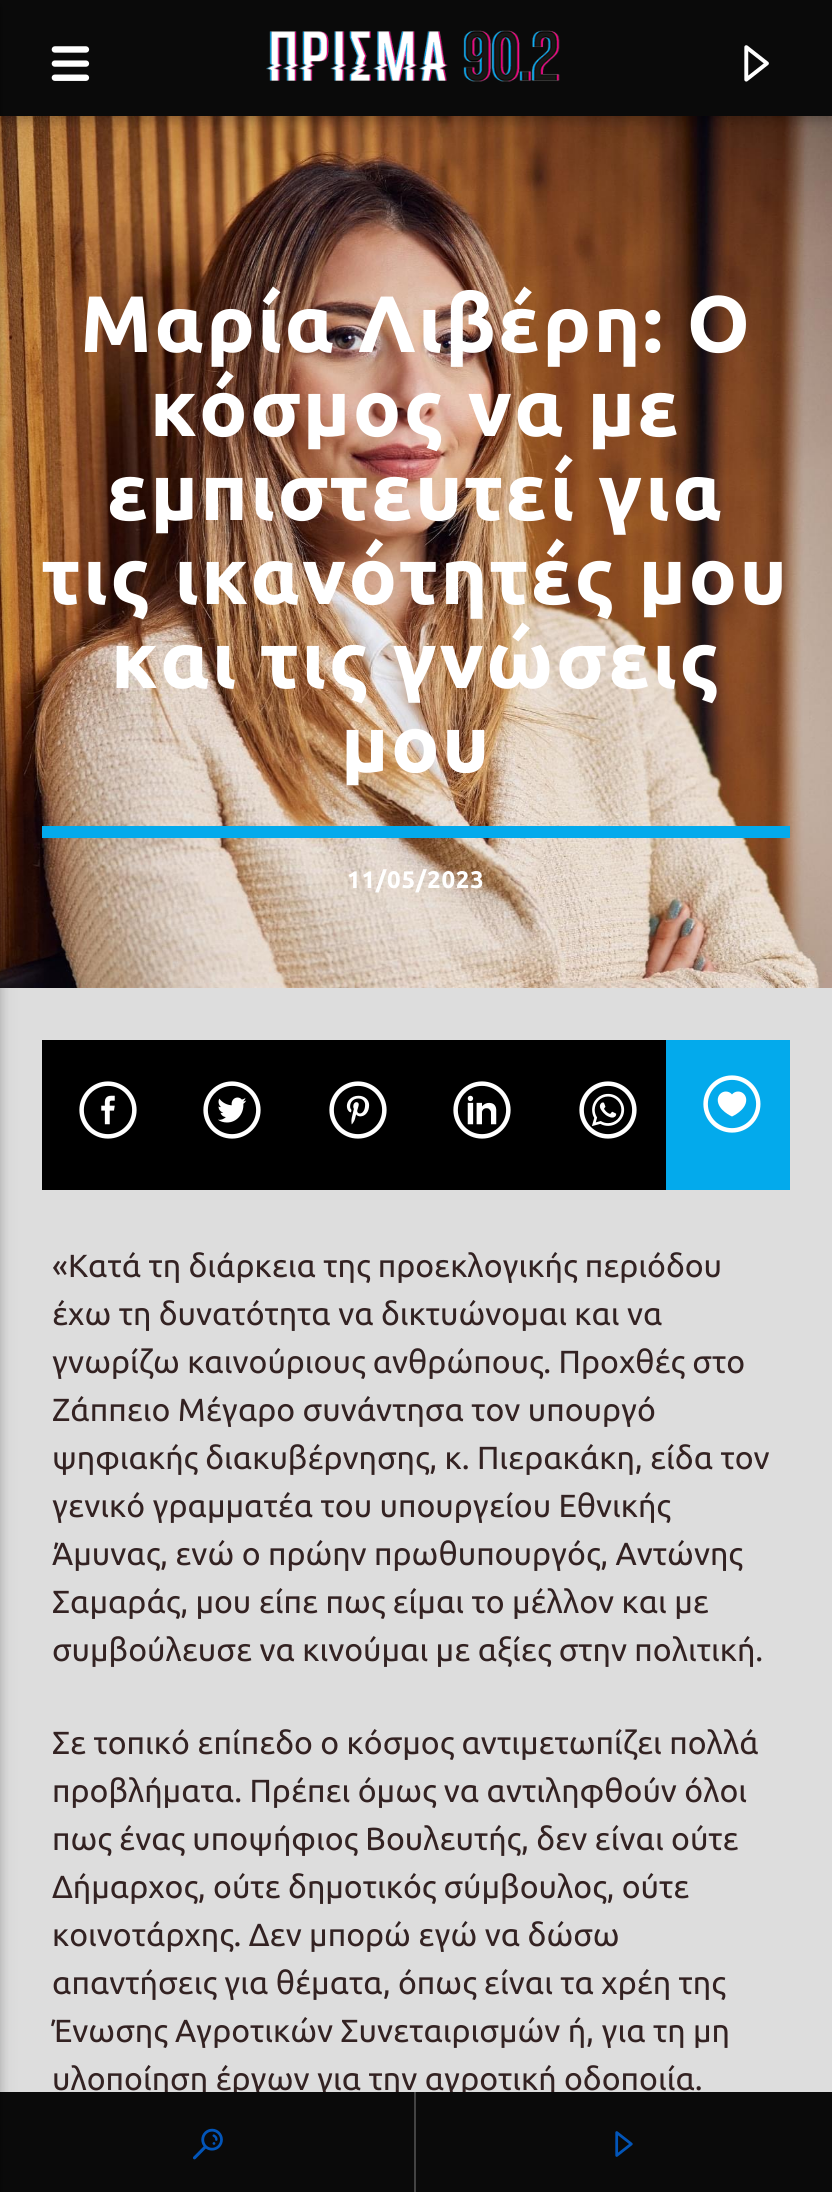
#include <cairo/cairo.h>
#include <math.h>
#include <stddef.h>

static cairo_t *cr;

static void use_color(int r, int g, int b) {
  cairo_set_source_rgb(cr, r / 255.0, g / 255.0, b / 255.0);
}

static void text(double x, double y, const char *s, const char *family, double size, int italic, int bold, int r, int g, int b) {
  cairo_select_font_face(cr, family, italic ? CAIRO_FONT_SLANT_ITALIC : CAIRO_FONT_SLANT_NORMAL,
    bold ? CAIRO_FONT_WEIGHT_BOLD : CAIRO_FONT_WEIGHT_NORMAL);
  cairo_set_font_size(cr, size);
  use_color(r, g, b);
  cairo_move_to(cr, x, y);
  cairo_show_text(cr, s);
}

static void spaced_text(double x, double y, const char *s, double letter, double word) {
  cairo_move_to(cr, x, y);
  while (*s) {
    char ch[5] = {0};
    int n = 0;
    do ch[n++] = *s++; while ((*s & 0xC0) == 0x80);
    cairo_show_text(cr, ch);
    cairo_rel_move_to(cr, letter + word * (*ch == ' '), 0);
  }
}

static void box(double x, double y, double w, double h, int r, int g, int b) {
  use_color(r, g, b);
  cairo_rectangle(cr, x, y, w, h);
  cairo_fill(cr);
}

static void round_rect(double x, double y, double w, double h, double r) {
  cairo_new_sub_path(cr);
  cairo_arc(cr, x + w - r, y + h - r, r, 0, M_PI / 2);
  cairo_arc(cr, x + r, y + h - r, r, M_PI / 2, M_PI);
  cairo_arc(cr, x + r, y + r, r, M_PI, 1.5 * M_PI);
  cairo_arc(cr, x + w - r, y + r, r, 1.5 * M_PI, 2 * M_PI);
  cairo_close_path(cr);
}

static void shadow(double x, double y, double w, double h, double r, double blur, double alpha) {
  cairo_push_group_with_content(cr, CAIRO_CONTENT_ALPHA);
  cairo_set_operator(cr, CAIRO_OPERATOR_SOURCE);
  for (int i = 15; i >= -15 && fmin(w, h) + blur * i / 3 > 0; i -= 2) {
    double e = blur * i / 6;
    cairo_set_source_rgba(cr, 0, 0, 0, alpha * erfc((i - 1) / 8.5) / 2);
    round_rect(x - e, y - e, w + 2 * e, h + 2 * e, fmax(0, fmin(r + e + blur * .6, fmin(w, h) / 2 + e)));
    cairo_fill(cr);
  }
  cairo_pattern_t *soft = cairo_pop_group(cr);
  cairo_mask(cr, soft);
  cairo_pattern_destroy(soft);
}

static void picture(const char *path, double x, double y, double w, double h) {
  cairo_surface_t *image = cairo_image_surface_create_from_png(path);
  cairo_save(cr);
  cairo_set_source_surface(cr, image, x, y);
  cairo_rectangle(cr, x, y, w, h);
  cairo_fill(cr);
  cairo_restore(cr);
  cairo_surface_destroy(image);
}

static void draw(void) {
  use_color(221, 221, 221);
  cairo_paint(cr);
  picture("img_04.png", 0, 116, 832, 872);
  use_color(0, 0, 0);
  shadow(0, 4, 832, 116, 0, 10, 0.12);
  shadow(0, 4, 832, 116, 0, 5, 0.16);
  box(0, 0, 832, 116, 10, 10, 10);
  picture("img_01.png", 51, 46, 39, 35);
  picture("img_02.png", 266, 30, 294, 52);
  picture("img_03.png", 744, 45, 25, 37);
  box(42, 826, 748, 12, 3, 170, 236);
  box(42, 1040, 624, 150, 0, 0, 0);
  picture("img_05.png", 79, 1081, 58, 58);
  picture("img_06.png", 203, 1081, 58, 58);
  picture("img_07.png", 329, 1081, 58, 58);
  picture("img_08.png", 453, 1081, 58, 58);
  picture("img_09.png", 579, 1081, 58, 58);
  box(666, 1040, 124, 150, 3, 170, 236);
  picture("img_10.png", 703, 1075, 58, 58);
  cairo_select_font_face(cr, "Ubuntu", CAIRO_FONT_SLANT_NORMAL, CAIRO_FONT_WEIGHT_BOLD);
  cairo_set_font_size(cr, 80);
  use_color(255, 255, 255);
  spaced_text(80, 352, "Μαρία Λιβέρη: Ο", 2.4, 0);
  spaced_text(150, 436, "κόσμος να με", 2.4, 0);
  spaced_text(107, 520, "εμπιστευτεί για", 2.4, 0);
  spaced_text(42, 604, "τις ικανότητές μου", 2.4, 0);
  spaced_text(111, 688, "και τις γνώσεις", 2.4, 0);
  spaced_text(341, 772, "μου", 2.4, 0);
  cairo_set_font_size(cr, 24);
  spaced_text(347, 888, "11/05/2023", 0.75, 0);
  text(52, 1277, "«Κατά τη διάρκεια της προεκλογικής περιόδου", "Ubuntu", 32, 0, 0, 51, 34, 34);
  text(52, 1325, "έχω τη δυνατότητα να δικτυώνομαι και να", "Ubuntu", 32, 0, 0, 51, 34, 34);
  text(52, 1373, "γνωρίζω καινούριους ανθρώπους. Προχθές στο", "Ubuntu", 32, 0, 0, 51, 34, 34);
  text(52, 1421, "Ζάππειο Μέγαρο συνάντησα τον υπουργό", "Ubuntu", 32, 0, 0, 51, 34, 34);
  text(52, 1469, "ψηφιακής διακυβέρνησης, κ. Πιερακάκη, είδα τον", "Ubuntu", 32, 0, 0, 51, 34, 34);
  text(52, 1517, "γενικό γραμματέα του υπουργείου Εθνικής", "Ubuntu", 32, 0, 0, 51, 34, 34);
  text(52, 1565, "Άμυνας, ενώ ο πρώην πρωθυπουργός, Αντώνης", "Ubuntu", 32, 0, 0, 51, 34, 34);
  text(52, 1613, "Σαμαράς, μου είπε πως είμαι το μέλλον και με", "Ubuntu", 32, 0, 0, 51, 34, 34);
  text(52, 1661, "συμβούλευσε να κινούμαι με αξίες στην πολιτική.", "Ubuntu", 32, 0, 0, 51, 34, 34);
  text(52, 1754, "Σε τοπικό επίπεδο ο κόσμος αντιμετωπίζει πολλά", "Ubuntu", 32, 0, 0, 51, 34, 34);
  text(52, 1802, "προβλήματα. Πρέπει όμως να αντιληφθούν όλοι", "Ubuntu", 32, 0, 0, 51, 34, 34);
  text(52, 1850, "πως ένας υποψήφιος Βουλευτής, δεν είναι ούτε", "Ubuntu", 32, 0, 0, 51, 34, 34);
  text(52, 1898, "Δήμαρχος, ούτε δημοτικός σύμβουλος, ούτε", "Ubuntu", 32, 0, 0, 51, 34, 34);
  text(52, 1946, "κοινοτάρχης. Δεν μπορώ εγώ να δώσω", "Ubuntu", 32, 0, 0, 51, 34, 34);
  text(52, 1994, "απαντήσεις για θέματα, όπως είναι τα χρέη της", "Ubuntu", 32, 0, 0, 51, 34, 34);
  text(52, 2042, "Ένωσης Αγροτικών Συνεταιρισμών ή, για τη μη", "Ubuntu", 32, 0, 0, 51, 34, 34);
  text(52, 2090, "υλοποίηση έργων για την αγροτική οδοποιία.", "Ubuntu", 32, 0, 0, 51, 34, 34);
  box(0, 2092, 832, 100, 10, 10, 10);
  use_color(0, 0, 0);
  shadow(-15, 4, 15, 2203, 0, 5, 0.16);
  shadow(-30, 4, 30, 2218, 0, 10, 0.12);
  box(414, 2092, 2, 100, 67, 67, 67);
  picture("img_11.png", 193, 2128, 30, 32);
  picture("img_12.png", 615, 2131, 18, 26);
}

int main(void) {
  cairo_surface_t *surface = cairo_image_surface_create(CAIRO_FORMAT_RGB24, 832, 2192);
  cr = cairo_create(surface);
  cairo_font_options_t *options = cairo_font_options_create();
  cairo_font_options_set_hint_metrics(options, CAIRO_HINT_METRICS_OFF);
  cairo_font_options_set_hint_style(options, CAIRO_HINT_STYLE_NONE);
  cairo_set_font_options(cr, options);
  cairo_set_miter_limit(cr, 4);
  draw();
  cairo_surface_write_to_png(surface, "out.png");
  cairo_font_options_destroy(options);
  cairo_destroy(cr);
  cairo_surface_destroy(surface);
  return 0;
}
